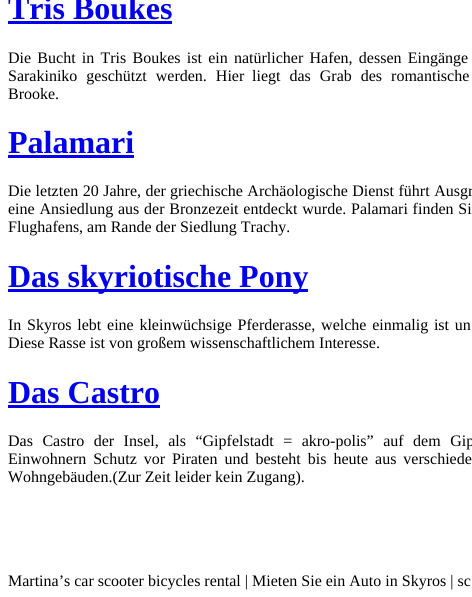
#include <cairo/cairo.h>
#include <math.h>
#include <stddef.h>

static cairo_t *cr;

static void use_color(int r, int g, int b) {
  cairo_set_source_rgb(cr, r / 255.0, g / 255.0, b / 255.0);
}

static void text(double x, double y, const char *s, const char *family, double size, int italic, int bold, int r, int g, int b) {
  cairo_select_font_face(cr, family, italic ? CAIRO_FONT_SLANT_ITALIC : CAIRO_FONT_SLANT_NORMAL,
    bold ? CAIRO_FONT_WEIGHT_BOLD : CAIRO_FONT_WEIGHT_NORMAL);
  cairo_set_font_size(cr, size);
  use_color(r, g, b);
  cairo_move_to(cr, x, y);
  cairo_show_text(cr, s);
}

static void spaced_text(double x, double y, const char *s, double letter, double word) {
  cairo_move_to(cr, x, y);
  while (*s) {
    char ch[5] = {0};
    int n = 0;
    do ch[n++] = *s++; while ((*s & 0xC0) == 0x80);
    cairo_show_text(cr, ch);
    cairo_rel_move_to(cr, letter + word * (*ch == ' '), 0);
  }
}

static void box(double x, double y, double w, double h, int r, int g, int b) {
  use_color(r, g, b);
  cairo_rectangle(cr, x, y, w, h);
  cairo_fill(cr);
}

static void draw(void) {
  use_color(255, 255, 255);
  cairo_paint(cr);
  box(8, 21, 164, 3, 0, 0, 238);
  box(8, 155, 126, 3, 0, 0, 238);
  box(8, 289, 300, 3, 0, 0, 238);
  box(8, 405, 152, 3, 0, 0, 238);
  text(8, 19, "Tris Boukes", "Liberation Serif", 32, 0, 1, 0, 0, 238);
  cairo_select_font_face(cr, "Liberation Serif", CAIRO_FONT_SLANT_NORMAL, CAIRO_FONT_WEIGHT_NORMAL);
  cairo_set_font_size(cr, 16);
  use_color(0, 0, 0);
  spaced_text(8, 63, "Die Bucht in Tris Boukes ist ein natürlicher Hafen, dessen Eingänge", 0, 2.25);
  spaced_text(8, 81, "Sarakiniko geschützt werden. Hier", 0, 5);
  spaced_text(252, 81, "liegt das Grab des romantische", 0, 5);
  text(8, 99, "Brooke.", "Liberation Serif", 16, 0, 0, 0, 0, 0);
  text(8, 153, "Palamari", "Liberation Serif", 32, 0, 1, 0, 0, 238);
  cairo_select_font_face(cr, "Liberation Serif", CAIRO_FONT_SLANT_NORMAL, CAIRO_FONT_WEIGHT_NORMAL);
  cairo_set_font_size(cr, 16);
  use_color(0, 0, 0);
  spaced_text(8, 196, "Die letzten 20 Jahre, der", 0, 0.5);
  spaced_text(170, 196, "griechische Archäologische Dienst führt Ausgr", 0, 0.5);
  spaced_text(8, 214, "eine Ansiedlung", 0, 0.75);
  spaced_text(118, 214, "aus der Bronzezeit entdeckt wurde. Palamari finden Si", 0, 0.75);
  text(8, 232, "Flughafens, am Rande der Siedlung Trachy.", "Liberation Serif", 16, 0, 0, 0, 0, 0);
  text(8, 287, "Das skyriotische Pony", "Liberation Serif", 32, 0, 1, 0, 0, 238);
  cairo_select_font_face(cr, "Liberation Serif", CAIRO_FONT_SLANT_NORMAL, CAIRO_FONT_WEIGHT_NORMAL);
  cairo_set_font_size(cr, 16);
  use_color(0, 0, 0);
  spaced_text(8, 330, "In Skyros lebt eine kleinwüchsige Pferderasse, welche einmalig ist un", 0, 1.75);
  text(8, 348, "Diese Rasse ist von großem wissenschaftlichem Interesse.", "Liberation Serif", 16, 0, 0, 0, 0, 0);
  text(8, 403, "Das Castro", "Liberation Serif", 32, 0, 1, 0, 0, 238);
  cairo_select_font_face(cr, "Liberation Serif", CAIRO_FONT_SLANT_NORMAL, CAIRO_FONT_WEIGHT_NORMAL);
  cairo_set_font_size(cr, 16);
  use_color(0, 0, 0);
  spaced_text(8, 446, "Das Castro der Insel, als “Gipfelstadt = akro-polis” auf dem Gip", 0, 5.5);
  spaced_text(8, 464, "Einwohnern Schutz vor Piraten und besteht bis heute aus verschiede", 0, 3);
  text(8, 482, "Wohngebäuden.(Zur Zeit leider kein Zugang).", "Liberation Serif", 16, 0, 0, 0, 0, 0);
  text(8, 586, "Martina’s car scooter bicycles rental | Mieten Sie ein Auto in Skyros | sc", "Liberation Serif", 16, 0, 0, 0, 0, 0);
}

int main(void) {
  cairo_surface_t *surface = cairo_image_surface_create(CAIRO_FORMAT_RGB24, 472, 597);
  cr = cairo_create(surface);
  cairo_font_options_t *options = cairo_font_options_create();
  cairo_font_options_set_hint_metrics(options, CAIRO_HINT_METRICS_OFF);
  cairo_font_options_set_hint_style(options, CAIRO_HINT_STYLE_NONE);
  cairo_set_font_options(cr, options);
  cairo_set_miter_limit(cr, 4);
  draw();
  cairo_surface_write_to_png(surface, "out.png");
  cairo_font_options_destroy(options);
  cairo_destroy(cr);
  cairo_surface_destroy(surface);
  return 0;
}
